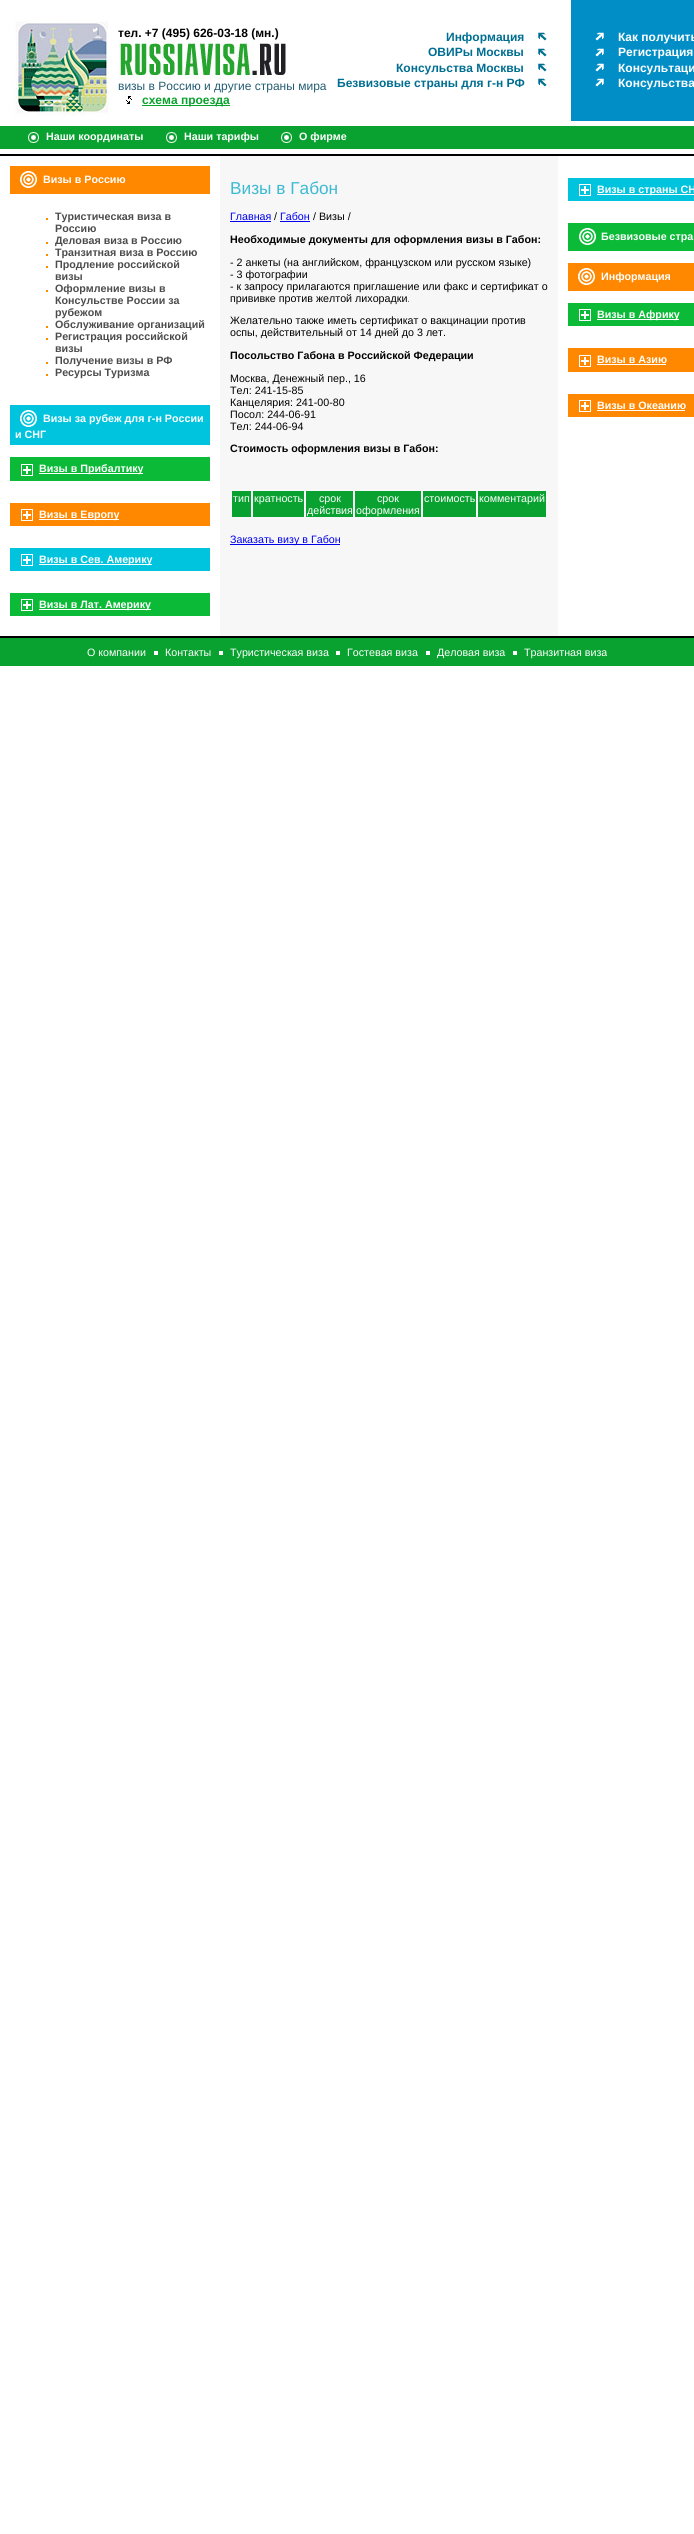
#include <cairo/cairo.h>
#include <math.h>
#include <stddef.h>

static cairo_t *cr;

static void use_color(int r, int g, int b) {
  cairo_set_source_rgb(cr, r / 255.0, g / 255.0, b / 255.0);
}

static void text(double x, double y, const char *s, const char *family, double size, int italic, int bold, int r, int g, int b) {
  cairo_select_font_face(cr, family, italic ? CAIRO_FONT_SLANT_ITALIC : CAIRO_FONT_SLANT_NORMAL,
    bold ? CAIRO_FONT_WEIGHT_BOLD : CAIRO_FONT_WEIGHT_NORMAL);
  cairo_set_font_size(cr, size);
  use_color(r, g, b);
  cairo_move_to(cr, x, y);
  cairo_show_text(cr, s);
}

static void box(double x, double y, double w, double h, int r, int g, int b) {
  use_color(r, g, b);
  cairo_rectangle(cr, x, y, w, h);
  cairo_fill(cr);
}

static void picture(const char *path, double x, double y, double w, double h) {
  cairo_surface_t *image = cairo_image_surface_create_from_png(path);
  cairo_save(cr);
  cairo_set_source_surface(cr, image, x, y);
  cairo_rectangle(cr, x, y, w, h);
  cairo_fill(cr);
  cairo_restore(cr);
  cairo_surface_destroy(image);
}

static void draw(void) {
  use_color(255, 255, 255);
  cairo_paint(cr);
  picture("img_01.png", 13, 20, 96, 96);
  picture("img_02.png", 118, 40, 168, 39);
  picture("img_03.png", 126, 96, 6, 8);
  box(142, 105, 88, 1, 10, 161, 45);
  picture("img_04.png", 538, 32, 9, 9);
  picture("img_04.png", 538, 48, 9, 9);
  picture("img_04.png", 538, 63, 9, 9);
  picture("img_04.png", 538, 78, 9, 9);
  box(571, 0, 123, 121, 1, 142, 198);
  picture("img_05.png", 595, 32, 9, 9);
  picture("img_05.png", 595, 48, 9, 9);
  picture("img_05.png", 595, 63, 9, 9);
  picture("img_05.png", 595, 78, 9, 9);
  box(0, 126, 694, 23, 9, 162, 48);
  picture("img_06.png", 28, 132, 11, 11);
  picture("img_06.png", 166, 132, 11, 11);
  picture("img_06.png", 281, 132, 11, 11);
  box(0, 154, 694, 2, 0, 0, 0);
  box(0, 636, 694, 2, 0, 0, 0);
  box(10, 166, 200, 28, 255, 136, 0);
  picture("img_07.png", 20, 171, 17, 17);
  box(46, 218, 2, 2, 255, 136, 1);
  box(46, 242, 2, 2, 255, 136, 1);
  box(46, 254, 2, 2, 255, 136, 1);
  box(46, 266, 2, 2, 255, 136, 1);
  box(46, 290, 2, 2, 255, 136, 1);
  box(46, 326, 2, 2, 255, 136, 1);
  box(46, 338, 2, 2, 255, 136, 1);
  box(46, 362, 2, 2, 255, 136, 1);
  box(46, 374, 2, 2, 255, 136, 1);
  box(10, 405, 200, 40, 0, 196, 222);
  picture("img_08.png", 20, 410, 18, 17);
  box(10, 457, 200, 24, 11, 186, 55);
  picture("img_09.png", 21, 464, 12, 12);
  box(39, 473, 104, 1, 255, 255, 255);
  box(10, 503, 200, 23, 255, 136, 0);
  picture("img_10.png", 21, 509, 12, 12);
  box(39, 519, 80, 1, 255, 255, 255);
  box(10, 548, 200, 23, 0, 196, 222);
  picture("img_11.png", 21, 554, 12, 12);
  box(39, 564, 113, 1, 255, 255, 255);
  box(10, 593, 200, 23, 11, 186, 55);
  picture("img_09.png", 21, 599, 12, 12);
  box(39, 609, 112, 1, 255, 255, 255);
  box(220, 156, 338, 480, 247, 247, 247);
  box(230, 221, 41, 1, 0, 0, 238);
  box(280, 221, 30, 1, 0, 0, 238);
  box(232, 491, 19, 26, 9, 162, 48);
  box(253, 491, 51, 26, 9, 162, 48);
  box(306, 491, 47, 26, 9, 162, 48);
  box(355, 491, 66, 26, 9, 162, 48);
  box(423, 491, 53, 26, 9, 162, 48);
  box(478, 491, 68, 26, 9, 162, 48);
  box(230, 544, 110, 1, 0, 0, 238);
  box(568, 178, 126, 23, 0, 196, 222);
  picture("img_11.png", 579, 184, 12, 12);
  box(597, 194, 97, 1, 255, 255, 255);
  box(568, 223, 126, 28, 11, 186, 55);
  picture("img_12.png", 579, 228, 17, 17);
  box(568, 263, 126, 28, 255, 136, 0);
  picture("img_07.png", 578, 268, 17, 17);
  box(568, 303, 126, 23, 11, 186, 55);
  picture("img_09.png", 579, 309, 12, 12);
  box(597, 319, 82, 1, 255, 255, 255);
  box(568, 348, 126, 24, 255, 136, 0);
  picture("img_10.png", 579, 355, 12, 12);
  box(597, 364, 69, 1, 255, 255, 255);
  box(568, 394, 126, 23, 255, 136, 0);
  picture("img_10.png", 579, 400, 12, 12);
  box(597, 410, 88, 1, 255, 255, 255);
  box(0, 638, 694, 28, 9, 162, 48);
  box(154, 651, 4, 4, 255, 255, 255);
  box(219, 651, 4, 4, 255, 255, 255);
  box(336, 651, 4, 4, 255, 255, 255);
  box(426, 651, 4, 4, 255, 255, 255);
  box(513, 651, 4, 4, 255, 255, 255);
  text(118, 37, "тел. +7 (495) 626-03-18 (мн.)", "Liberation Sans", 12, 0, 1, 1, 1, 1);
  text(118, 90, "визы в Россию и другие страны мира", "Liberation Sans", 12, 0, 0, 35, 93, 115);
  text(142, 104, "схема проезда", "Liberation Sans", 12, 0, 1, 10, 161, 45);
  text(446, 41, "Информация", "Liberation Sans", 12, 0, 1, 0, 110, 145);
  text(428, 56, "ОВИРы Москвы", "Liberation Sans", 12, 0, 1, 0, 110, 145);
  text(396, 72, "Консульства Москвы", "Liberation Sans", 12, 0, 1, 0, 110, 145);
  text(337, 87, "Безвизовые страны для г-н РФ", "Liberation Sans", 12, 0, 1, 0, 110, 145);
  text(618, 41, "Как получить", "Liberation Sans", 12, 0, 1, 255, 255, 255);
  text(618, 56, "Регистрация", "Liberation Sans", 12, 0, 1, 255, 255, 255);
  text(618, 72, "Консультаци", "Liberation Sans", 12, 0, 1, 255, 255, 255);
  text(618, 87, "Консульства", "Liberation Sans", 12, 0, 1, 255, 255, 255);
  text(46, 140, "Наши координаты", "Liberation Sans", 10.7, 0, 1, 255, 255, 255);
  text(184, 140, "Наши тарифы", "Liberation Sans", 10.7, 0, 1, 255, 255, 255);
  text(299, 140, "О фирме", "Liberation Sans", 10.7, 0, 1, 255, 255, 255);
  text(43, 183, "Визы в Россию", "Liberation Sans", 10.7, 0, 1, 255, 255, 255);
  text(55, 220, "Туристическая виза в", "Liberation Sans", 10.7, 0, 1, 76, 76, 76);
  text(55, 232, "Россию", "Liberation Sans", 10.7, 0, 1, 76, 76, 76);
  text(55, 244, "Деловая виза в Россию", "Liberation Sans", 10.7, 0, 1, 76, 76, 76);
  text(55, 256, "Транзитная виза в Россию", "Liberation Sans", 10.7, 0, 1, 76, 76, 76);
  text(55, 268, "Продление российской", "Liberation Sans", 10.7, 0, 1, 76, 76, 76);
  text(55, 280, "визы", "Liberation Sans", 10.7, 0, 1, 76, 76, 76);
  text(55, 292, "Оформление визы в", "Liberation Sans", 10.7, 0, 1, 76, 76, 76);
  text(55, 304, "Консульстве России за", "Liberation Sans", 10.7, 0, 1, 76, 76, 76);
  text(55, 316, "рубежом", "Liberation Sans", 10.7, 0, 1, 76, 76, 76);
  text(55, 328, "Обслуживание организаций", "Liberation Sans", 10.7, 0, 1, 76, 76, 76);
  text(55, 340, "Регистрация российской", "Liberation Sans", 10.7, 0, 1, 76, 76, 76);
  text(55, 352, "визы", "Liberation Sans", 10.7, 0, 1, 76, 76, 76);
  text(55, 364, "Получение визы в РФ", "Liberation Sans", 10.7, 0, 1, 76, 76, 76);
  text(55, 376, "Ресурсы Туризма", "Liberation Sans", 10.7, 0, 1, 76, 76, 76);
  text(43, 422, "Визы за рубеж для г-н России", "Liberation Sans", 10.7, 0, 1, 255, 255, 255);
  text(15, 438, "и СНГ", "Liberation Sans", 10.7, 0, 1, 255, 255, 255);
  text(39, 472, "Визы в Прибалтику", "Liberation Sans", 10.7, 0, 1, 255, 255, 255);
  text(39, 518, "Визы в Европу", "Liberation Sans", 10.7, 0, 1, 255, 255, 255);
  text(39, 563, "Визы в Сев. Америку", "Liberation Sans", 10.7, 0, 1, 255, 255, 255);
  text(39, 608, "Визы в Лат. Америку", "Liberation Sans", 10.7, 0, 1, 255, 255, 255);
  text(230, 194, "Визы в Габон", "Liberation Sans", 17.25, 0, 0, 60, 186, 211);
  text(230, 220, "Главная", "Liberation Sans", 10.7, 0, 0, 0, 0, 238);
  text(274, 220, "/", "Liberation Sans", 10.7, 0, 0, 1, 1, 1);
  text(280, 220, "Габон", "Liberation Sans", 10.7, 0, 0, 0, 0, 238);
  text(313, 220, "/ Визы /", "Liberation Sans", 10.7, 0, 0, 1, 1, 1);
  text(230, 243, "Необходимые документы для оформления визы в Габон:", "Liberation Sans", 10.7, 0, 1, 1, 1, 1);
  text(230, 266, "- 2 анкеты (на английском, французском или русском языке)", "Liberation Sans", 10.7, 0, 0, 1, 1, 1);
  text(230, 278, "- 3 фотографии", "Liberation Sans", 10.7, 0, 0, 1, 1, 1);
  text(230, 290, "- к запросу прилагаются приглашение или факс и сертификат о", "Liberation Sans", 10.7, 0, 0, 1, 1, 1);
  text(230, 302, "прививке против желтой лихорадки.", "Liberation Sans", 10.7, 0, 0, 1, 1, 1);
  text(230, 324, "Желательно также иметь сертификат о вакцинации против", "Liberation Sans", 10.7, 0, 0, 1, 1, 1);
  text(230, 336, "оспы, действительный от 14 дней до 3 лет.", "Liberation Sans", 10.7, 0, 0, 1, 1, 1);
  text(230, 359, "Посольство Габона в Российской Федерации", "Liberation Sans", 10.7, 0, 1, 1, 1, 1);
  text(230, 382, "Москва, Денежный пер., 16", "Liberation Sans", 10.7, 0, 0, 1, 1, 1);
  text(230, 394, "Тел: 241-15-85", "Liberation Sans", 10.7, 0, 0, 1, 1, 1);
  text(230, 406, "Канцелярия: 241-00-80", "Liberation Sans", 10.7, 0, 0, 1, 1, 1);
  text(230, 418, "Посол: 244-06-91", "Liberation Sans", 10.7, 0, 0, 1, 1, 1);
  text(230, 430, "Тел: 244-06-94", "Liberation Sans", 10.7, 0, 0, 1, 1, 1);
  text(230, 452, "Стоимость оформления визы в Габон:", "Liberation Sans", 10.7, 0, 1, 1, 1, 1);
  text(233, 502, "тип", "Liberation Sans", 10.7, 0, 0, 255, 255, 255);
  text(254, 502, "кратность", "Liberation Sans", 10.7, 0, 0, 255, 255, 255);
  text(319, 502, "срок", "Liberation Sans", 10.7, 0, 0, 255, 255, 255);
  text(307, 514, "действия", "Liberation Sans", 10.7, 0, 0, 255, 255, 255);
  text(377, 502, "срок", "Liberation Sans", 10.7, 0, 0, 255, 255, 255);
  text(356, 514, "оформления", "Liberation Sans", 10.7, 0, 0, 255, 255, 255);
  text(424, 502, "стоимость", "Liberation Sans", 10.7, 0, 0, 255, 255, 255);
  text(479, 502, "комментарий", "Liberation Sans", 10.7, 0, 0, 255, 255, 255);
  text(230, 543, "Заказать визу в Габон", "Liberation Sans", 10.7, 0, 0, 0, 0, 238);
  text(597, 193, "Визы в страны СН", "Liberation Sans", 10.7, 0, 1, 255, 255, 255);
  text(601, 240, "Безвизовые стра", "Liberation Sans", 10.7, 0, 1, 255, 255, 255);
  text(601, 280, "Информация", "Liberation Sans", 10.7, 0, 1, 255, 255, 255);
  text(597, 318, "Визы в Африку", "Liberation Sans", 10.7, 0, 1, 255, 255, 255);
  text(597, 363, "Визы в Азию", "Liberation Sans", 10.7, 0, 1, 255, 255, 255);
  text(597, 409, "Визы в Океанию", "Liberation Sans", 10.7, 0, 1, 255, 255, 255);
  text(87, 656, "О компании", "Liberation Sans", 10.7, 0, 0, 255, 255, 255);
  text(165, 656, "Контакты", "Liberation Sans", 10.7, 0, 0, 255, 255, 255);
  text(230, 656, "Туристическая виза", "Liberation Sans", 10.7, 0, 0, 255, 255, 255);
  text(347, 656, "Гостевая виза", "Liberation Sans", 10.7, 0, 0, 255, 255, 255);
  text(437, 656, "Деловая виза", "Liberation Sans", 10.7, 0, 0, 255, 255, 255);
  text(524, 656, "Транзитная виза", "Liberation Sans", 10.7, 0, 0, 255, 255, 255);
}

int main(void) {
  cairo_surface_t *surface = cairo_image_surface_create(CAIRO_FORMAT_RGB24, 694, 2534);
  cr = cairo_create(surface);
  cairo_font_options_t *options = cairo_font_options_create();
  cairo_font_options_set_hint_metrics(options, CAIRO_HINT_METRICS_OFF);
  cairo_font_options_set_hint_style(options, CAIRO_HINT_STYLE_NONE);
  cairo_set_font_options(cr, options);
  cairo_set_miter_limit(cr, 4);
  draw();
  cairo_surface_write_to_png(surface, "out.png");
  cairo_font_options_destroy(options);
  cairo_destroy(cr);
  cairo_surface_destroy(surface);
  return 0;
}
